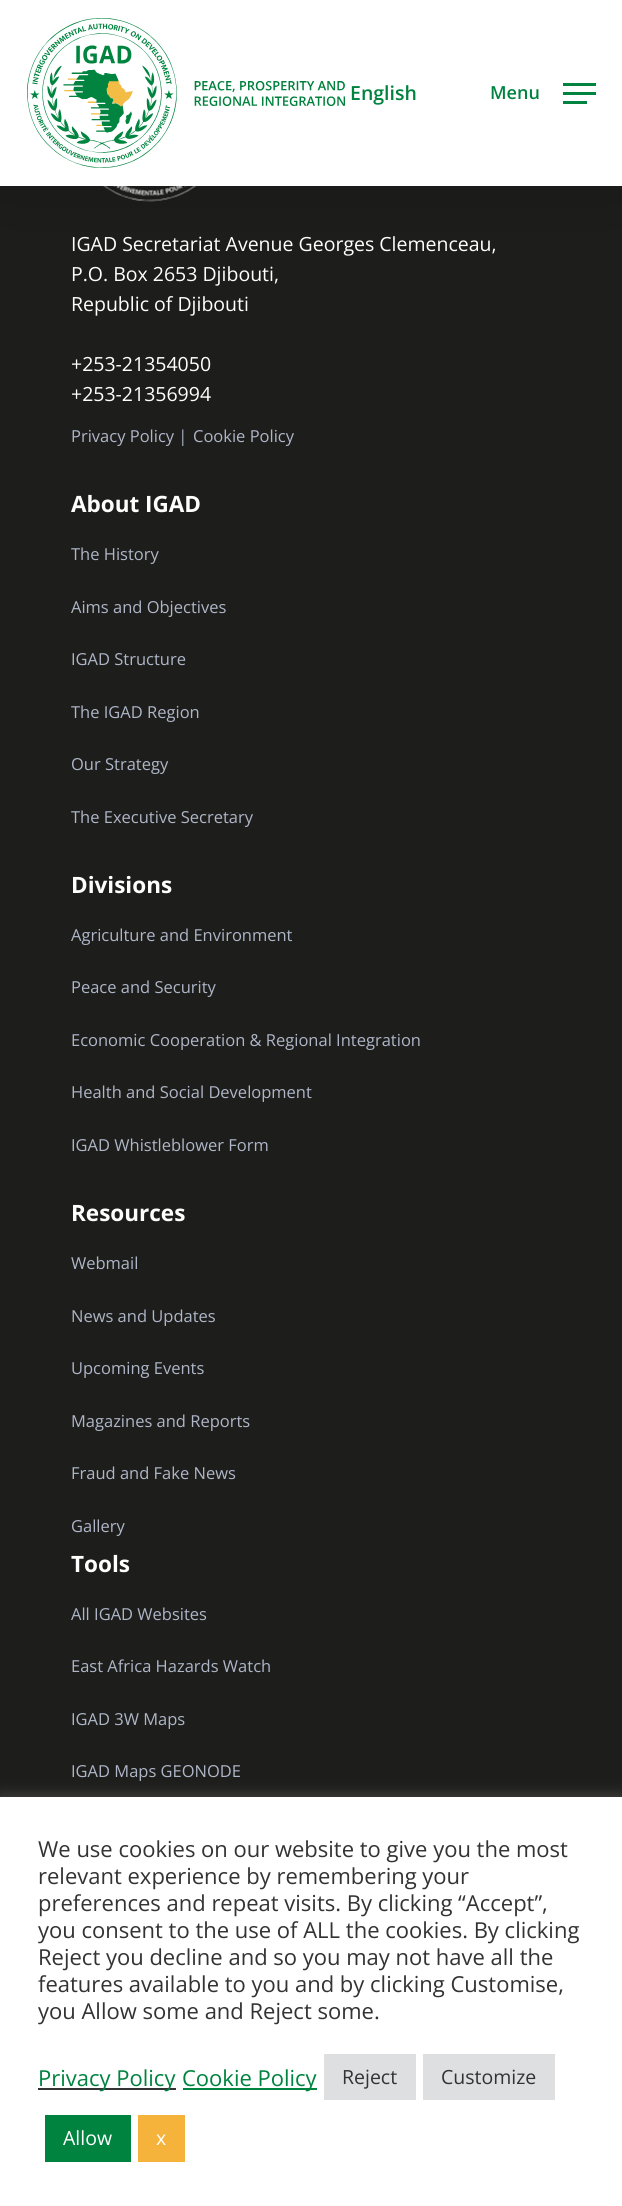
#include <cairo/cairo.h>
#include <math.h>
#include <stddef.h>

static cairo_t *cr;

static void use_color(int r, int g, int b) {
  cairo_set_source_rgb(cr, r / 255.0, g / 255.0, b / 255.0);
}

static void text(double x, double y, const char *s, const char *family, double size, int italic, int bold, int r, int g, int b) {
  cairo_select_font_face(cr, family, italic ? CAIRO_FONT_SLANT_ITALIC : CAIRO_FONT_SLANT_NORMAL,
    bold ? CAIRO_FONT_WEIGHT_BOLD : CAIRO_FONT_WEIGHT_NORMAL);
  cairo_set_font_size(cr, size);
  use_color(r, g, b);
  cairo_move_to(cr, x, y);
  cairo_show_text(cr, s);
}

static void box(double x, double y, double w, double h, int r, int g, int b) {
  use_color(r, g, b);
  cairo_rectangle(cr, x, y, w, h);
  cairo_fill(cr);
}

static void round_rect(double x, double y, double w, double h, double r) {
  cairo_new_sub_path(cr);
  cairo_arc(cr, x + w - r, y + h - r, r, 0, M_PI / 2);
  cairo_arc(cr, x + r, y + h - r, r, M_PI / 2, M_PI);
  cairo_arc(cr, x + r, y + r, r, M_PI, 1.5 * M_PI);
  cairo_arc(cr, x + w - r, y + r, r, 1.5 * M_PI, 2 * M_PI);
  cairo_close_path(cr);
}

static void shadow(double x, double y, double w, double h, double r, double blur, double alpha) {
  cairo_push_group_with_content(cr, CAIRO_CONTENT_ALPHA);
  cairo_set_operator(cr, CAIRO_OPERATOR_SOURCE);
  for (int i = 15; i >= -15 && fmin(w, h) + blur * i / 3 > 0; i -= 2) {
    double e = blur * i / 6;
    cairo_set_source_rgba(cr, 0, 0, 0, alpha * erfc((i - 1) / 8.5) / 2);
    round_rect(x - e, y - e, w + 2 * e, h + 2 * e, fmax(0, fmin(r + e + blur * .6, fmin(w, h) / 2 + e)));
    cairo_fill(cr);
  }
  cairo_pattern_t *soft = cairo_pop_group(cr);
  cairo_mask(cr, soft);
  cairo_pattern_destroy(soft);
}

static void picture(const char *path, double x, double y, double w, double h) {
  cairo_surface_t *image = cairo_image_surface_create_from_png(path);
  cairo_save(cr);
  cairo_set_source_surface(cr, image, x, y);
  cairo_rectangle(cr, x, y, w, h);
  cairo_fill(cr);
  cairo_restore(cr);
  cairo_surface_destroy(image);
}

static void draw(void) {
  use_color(29, 29, 27);
  cairo_paint(cr);
  picture("img_02.png", 103, 186, 94, 16);
  use_color(0, 0, 0);
  shadow(0, 5, 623, 186, 0, 34, 0.15);
  box(0, 0, 622, 186, 255, 255, 255);
  picture("img_01.png", 27, 18, 318, 150);
  box(563, 83, 33, 3, 0, 131, 63);
  box(563, 101, 24, 3, 0, 131, 63);
  box(563, 92, 33, 3, 0, 131, 63);
  use_color(172, 171, 171);
  shadow(0, 1796, 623, 409, 0, 7.5, 0.3);
  box(0, 1797, 622, 409, 255, 255, 255);
  box(38, 2088, 138, 2, 51, 51, 51);
  box(183, 2088, 134, 2, 0, 131, 63);
  box(324, 2054, 92, 46, 222, 223, 224);
  box(423, 2054, 132, 46, 222, 223, 224);
  box(45, 2115, 86, 47, 0, 131, 63);
  box(138, 2115, 47, 47, 246, 179, 59);
  text(350, 100, "English", "Open Sans SemiBold", 19.5, 0, 0, 0, 131, 63);
  text(490, 99, "Menu", "Open Sans SemiBold", 18, 0, 0, 0, 131, 63);
  text(71, 251, "IGAD Secretariat Avenue Georges Clemenceau,", "Open Sans", 19.5, 0, 0, 255, 255, 255);
  text(71, 281, "P.O. Box 2653 Djibouti,", "Open Sans", 19.5, 0, 0, 255, 255, 255);
  text(71, 311, "Republic of Djibouti", "Open Sans", 19.5, 0, 0, 255, 255, 255);
  text(71, 371, "+253-21354050", "Open Sans", 19.5, 0, 0, 255, 255, 255);
  text(71, 401, "+253-21356994", "Open Sans", 19.5, 0, 0, 255, 255, 255);
  text(71, 442, "Privacy Policy |", "Open Sans", 16.5, 0, 0, 174, 182, 199);
  text(193, 442, "Cookie Policy", "Open Sans", 16.5, 0, 0, 174, 182, 199);
  text(71, 512, "About IGAD", "Open Sans", 22.5, 0, 1, 255, 255, 255);
  text(71, 560, "The History", "Open Sans", 16.5, 0, 0, 174, 182, 199);
  text(71, 613, "Aims and Objectives", "Open Sans", 16.5, 0, 0, 174, 182, 199);
  text(71, 665, "IGAD Structure", "Open Sans", 16.5, 0, 0, 174, 182, 199);
  text(71, 718, "The IGAD Region", "Open Sans", 16.5, 0, 0, 174, 182, 199);
  text(71, 770, "Our Strategy", "Open Sans", 16.5, 0, 0, 174, 182, 199);
  text(71, 823, "The Executive Secretary", "Open Sans", 16.5, 0, 0, 174, 182, 199);
  text(71, 893, "Divisions", "Open Sans", 22.5, 0, 1, 255, 255, 255);
  text(71, 941, "Agriculture and Environment", "Open Sans", 16.5, 0, 0, 174, 182, 199);
  text(71, 993, "Peace and Security", "Open Sans", 16.5, 0, 0, 174, 182, 199);
  text(71, 1046, "Economic Cooperation & Regional Integration", "Open Sans", 16.5, 0, 0, 174, 182, 199);
  text(71, 1098, "Health and Social Development", "Open Sans", 16.5, 0, 0, 174, 182, 199);
  text(71, 1151, "IGAD Whistleblower Form", "Open Sans", 16.5, 0, 0, 174, 182, 199);
  text(71, 1221, "Resources", "Open Sans", 22.5, 0, 1, 255, 255, 255);
  text(71, 1269, "Webmail", "Open Sans", 16.5, 0, 0, 174, 182, 199);
  text(71, 1322, "News and Updates", "Open Sans", 16.5, 0, 0, 174, 182, 199);
  text(71, 1374, "Upcoming Events", "Open Sans", 16.5, 0, 0, 174, 182, 199);
  text(71, 1427, "Magazines and Reports", "Open Sans", 16.5, 0, 0, 174, 182, 199);
  text(71, 1479, "Fraud and Fake News", "Open Sans", 16.5, 0, 0, 174, 182, 199);
  text(71, 1532, "Gallery", "Open Sans", 16.5, 0, 0, 174, 182, 199);
  text(71, 1572, "Tools", "Open Sans", 22.5, 0, 1, 255, 255, 255);
  text(71, 1620, "All IGAD Websites", "Open Sans", 16.5, 0, 0, 174, 182, 199);
  text(71, 1672, "East Africa Hazards Watch", "Open Sans", 16.5, 0, 0, 174, 182, 199);
  text(71, 1725, "IGAD 3W Maps", "Open Sans", 16.5, 0, 0, 174, 182, 199);
  text(71, 1777, "IGAD Maps GEONODE", "Open Sans", 16.5, 0, 0, 174, 182, 199);
  text(38, 1857, "We use cookies on our website to give you the most", "Open Sans", 22, 0, 0, 51, 51, 51);
  text(38, 1884, "relevant experience by remembering your", "Open Sans", 22, 0, 0, 51, 51, 51);
  text(38, 1911, "preferences and repeat visits. By clicking “Accept”,", "Open Sans", 22, 0, 0, 51, 51, 51);
  text(38, 1938, "you consent to the use of ALL the cookies. By clicking", "Open Sans", 22, 0, 0, 51, 51, 51);
  text(38, 1965, "Reject you decline and so you may not have all the", "Open Sans", 22, 0, 0, 51, 51, 51);
  text(38, 1992, "features available to you and by clicking Customise,", "Open Sans", 22, 0, 0, 51, 51, 51);
  text(38, 2019, "you Allow some and Reject some.", "Open Sans", 22, 0, 0, 51, 51, 51);
  text(38, 2086, "Privacy Policy", "Open Sans", 22, 0, 0, 0, 131, 63);
  text(182, 2086, "Cookie Policy", "Open Sans", 22, 0, 0, 0, 131, 63);
  text(342, 2084, "Reject", "Open Sans", 19.5, 0, 0, 51, 51, 51);
  text(441, 2084, "Customize", "Open Sans", 19.5, 0, 0, 51, 51, 51);
  text(63, 2145, "Allow", "Open Sans", 19.5, 0, 0, 255, 255, 255);
  text(156, 2145, "x", "Open Sans", 19.5, 0, 0, 255, 255, 255);
}

int main(void) {
  cairo_surface_t *surface = cairo_image_surface_create(CAIRO_FORMAT_RGB24, 622, 2206);
  cr = cairo_create(surface);
  cairo_font_options_t *options = cairo_font_options_create();
  cairo_font_options_set_hint_metrics(options, CAIRO_HINT_METRICS_OFF);
  cairo_font_options_set_hint_style(options, CAIRO_HINT_STYLE_NONE);
  cairo_set_font_options(cr, options);
  cairo_set_miter_limit(cr, 4);
  draw();
  cairo_surface_write_to_png(surface, "out.png");
  cairo_font_options_destroy(options);
  cairo_destroy(cr);
  cairo_surface_destroy(surface);
  return 0;
}
